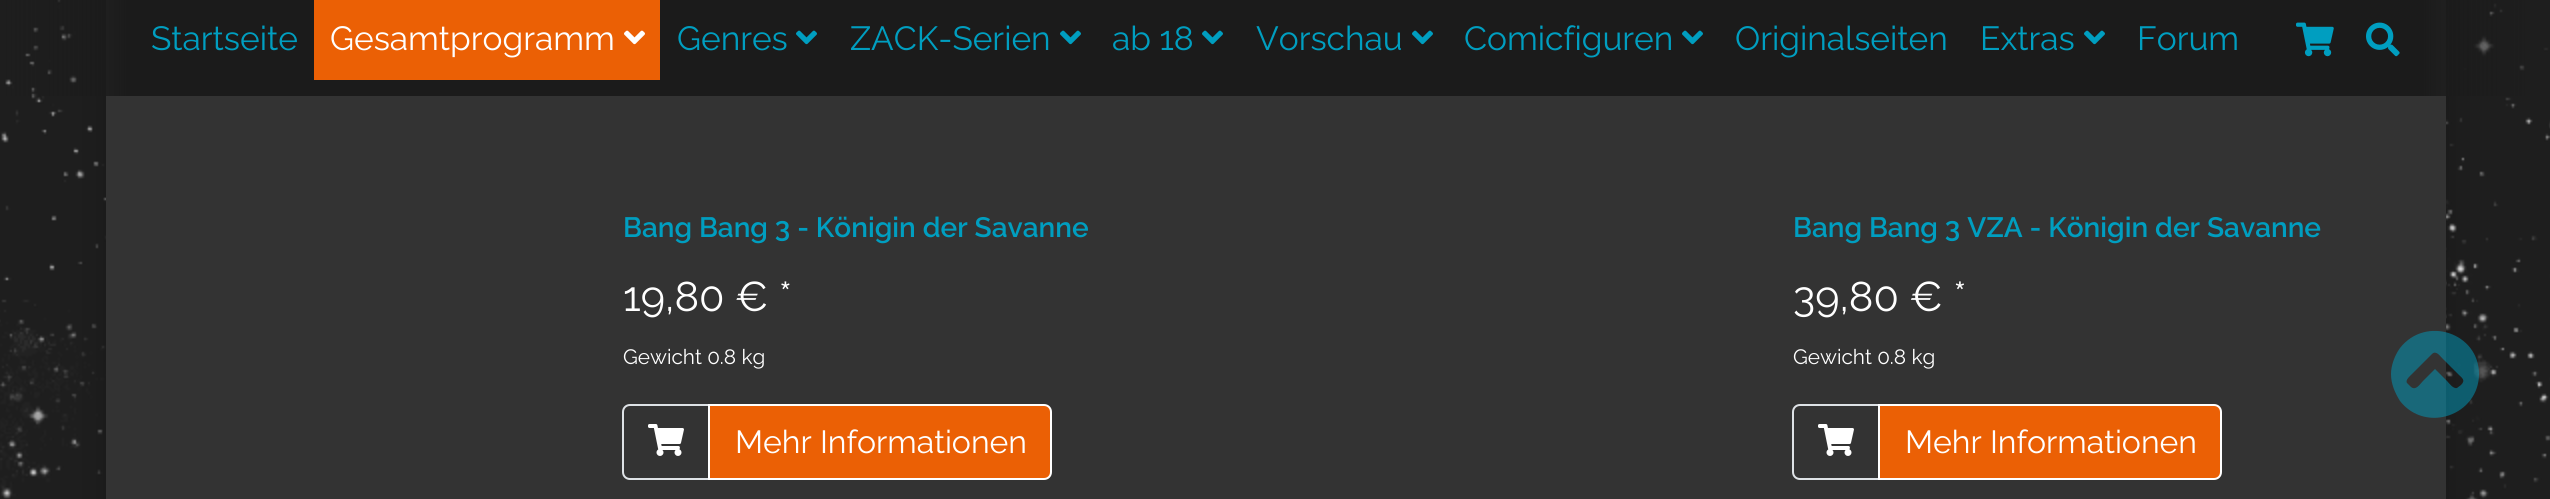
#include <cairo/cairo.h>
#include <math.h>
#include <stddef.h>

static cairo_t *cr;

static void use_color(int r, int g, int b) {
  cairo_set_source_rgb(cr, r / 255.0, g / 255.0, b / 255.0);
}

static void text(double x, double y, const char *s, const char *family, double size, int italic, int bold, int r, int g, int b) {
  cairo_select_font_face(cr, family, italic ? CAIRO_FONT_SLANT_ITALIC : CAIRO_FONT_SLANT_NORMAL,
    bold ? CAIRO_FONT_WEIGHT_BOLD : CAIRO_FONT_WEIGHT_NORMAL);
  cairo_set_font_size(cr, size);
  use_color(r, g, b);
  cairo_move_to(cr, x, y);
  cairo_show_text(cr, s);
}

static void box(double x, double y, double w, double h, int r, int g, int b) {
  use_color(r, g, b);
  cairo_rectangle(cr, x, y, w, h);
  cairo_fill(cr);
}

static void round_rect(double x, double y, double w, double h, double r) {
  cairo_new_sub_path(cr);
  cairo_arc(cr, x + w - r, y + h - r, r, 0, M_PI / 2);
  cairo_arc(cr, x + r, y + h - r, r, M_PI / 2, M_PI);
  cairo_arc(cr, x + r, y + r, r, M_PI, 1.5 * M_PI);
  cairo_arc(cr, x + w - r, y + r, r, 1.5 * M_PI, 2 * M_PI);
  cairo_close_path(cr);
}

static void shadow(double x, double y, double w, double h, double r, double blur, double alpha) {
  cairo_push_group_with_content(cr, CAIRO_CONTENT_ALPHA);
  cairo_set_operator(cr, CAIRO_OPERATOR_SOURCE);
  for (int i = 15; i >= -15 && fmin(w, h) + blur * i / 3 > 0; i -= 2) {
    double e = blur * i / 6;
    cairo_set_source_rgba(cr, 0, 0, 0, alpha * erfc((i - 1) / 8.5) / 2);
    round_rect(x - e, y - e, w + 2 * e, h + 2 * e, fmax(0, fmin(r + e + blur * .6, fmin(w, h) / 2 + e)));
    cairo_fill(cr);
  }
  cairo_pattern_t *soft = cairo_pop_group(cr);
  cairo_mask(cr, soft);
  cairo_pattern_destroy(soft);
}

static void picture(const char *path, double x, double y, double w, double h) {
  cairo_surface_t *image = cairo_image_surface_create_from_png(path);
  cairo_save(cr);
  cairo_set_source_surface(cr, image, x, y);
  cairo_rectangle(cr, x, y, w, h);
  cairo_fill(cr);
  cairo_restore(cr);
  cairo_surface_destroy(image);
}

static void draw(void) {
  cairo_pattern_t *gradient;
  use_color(255, 255, 255);
  cairo_paint(cr);
  picture("img_01.png", 0, 0, 2550, 499);
  use_color(0, 0, 0);
  shadow(106, -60, 2340, 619, 0, 20, 0.2);
  box(106, 0, 2340, 499, 51, 51, 51);
  gradient = cairo_pattern_create_linear(0, 48, 2550, 48);
  cairo_pattern_add_color_stop_rgba(gradient, 0, 0.106, 0.106, 0.106, 0);
  cairo_pattern_add_color_stop_rgba(gradient, 0.05, 0.106, 0.106, 0.106, 1);
  cairo_pattern_add_color_stop_rgba(gradient, 0.95, 0.106, 0.106, 0.106, 1);
  cairo_pattern_add_color_stop_rgba(gradient, 1, 0.106, 0.106, 0.106, 0);
  cairo_set_source(cr, gradient);
  cairo_pattern_destroy(gradient);
  cairo_rectangle(cr, 6, 0, 2519, 96);
  cairo_fill(cr);
  box(314, 0, 346, 80, 235, 96, 5);
  picture("img_02.png", 624, 30, 21, 15);
  picture("img_03.png", 796, 30, 21, 15);
  picture("img_03.png", 1060, 30, 21, 15);
  picture("img_03.png", 1202, 30, 21, 15);
  picture("img_03.png", 1412, 30, 21, 15);
  picture("img_03.png", 1682, 30, 21, 15);
  picture("img_03.png", 2084, 30, 21, 15);
  picture("img_04.png", 2296, 22, 38, 35);
  picture("img_05.png", 2366, 22, 34, 35);
  cairo_new_path(cr);
  cairo_move_to(cr, 630, 405);
  cairo_line_to(cr, 709, 405);
  cairo_line_to(cr, 709, 479);
  cairo_line_to(cr, 630, 479);
  cairo_curve_to(cr, 626, 479, 623, 476, 623, 472);
  cairo_line_to(cr, 623, 412);
  cairo_curve_to(cr, 623, 408, 626, 405, 630, 405);
  cairo_close_path(cr);
  use_color(222, 226, 230);
  cairo_stroke(cr);
  picture("img_06.png", 648, 424, 36, 32);
  use_color(235, 96, 5);
  cairo_new_path(cr);
  cairo_move_to(cr, 709, 405);
  cairo_line_to(cr, 1044, 405);
  cairo_curve_to(cr, 1048, 405, 1051, 408, 1051, 412);
  cairo_line_to(cr, 1051, 472);
  cairo_curve_to(cr, 1051, 476, 1048, 479, 1044, 479);
  cairo_line_to(cr, 709, 479);
  cairo_close_path(cr);
  cairo_fill_preserve(cr);
  use_color(255, 255, 255);
  cairo_stroke(cr);
  cairo_new_path(cr);
  cairo_move_to(cr, 1800, 405);
  cairo_line_to(cr, 1879, 405);
  cairo_line_to(cr, 1879, 479);
  cairo_line_to(cr, 1800, 479);
  cairo_curve_to(cr, 1796, 479, 1793, 476, 1793, 472);
  cairo_line_to(cr, 1793, 412);
  cairo_curve_to(cr, 1793, 408, 1796, 405, 1800, 405);
  cairo_close_path(cr);
  use_color(222, 226, 230);
  cairo_stroke(cr);
  picture("img_06.png", 1818, 424, 36, 32);
  use_color(235, 96, 5);
  cairo_new_path(cr);
  cairo_move_to(cr, 1879, 405);
  cairo_line_to(cr, 2214, 405);
  cairo_curve_to(cr, 2218, 405, 2221, 408, 2221, 412);
  cairo_line_to(cr, 2221, 472);
  cairo_curve_to(cr, 2221, 476, 2218, 479, 2214, 479);
  cairo_line_to(cr, 1879, 479);
  cairo_close_path(cr);
  cairo_fill_preserve(cr);
  use_color(255, 255, 255);
  cairo_stroke(cr);
  cairo_set_source_rgba(cr, 0, 0.62, 0.753, 0.5);
  cairo_new_path(cr);
  cairo_move_to(cr, 2391, 374);
  cairo_curve_to(cr, 2391, 365, 2395, 355, 2400, 348);
  cairo_curve_to(cr, 2426, 315, 2479, 333, 2479, 374);
  cairo_curve_to(cr, 2479, 415, 2426, 434, 2400, 401);
  cairo_curve_to(cr, 2395, 393, 2391, 384, 2391, 374);
  cairo_close_path(cr);
  cairo_move_to(cr, 2432, 354);
  cairo_line_to(cr, 2412, 374);
  cairo_curve_to(cr, 2410, 376, 2405, 380, 2407, 383);
  cairo_line_to(cr, 2411, 387);
  cairo_curve_to(cr, 2416, 391, 2420, 384, 2423, 381);
  cairo_line_to(cr, 2435, 369);
  cairo_line_to(cr, 2447, 381);
  cairo_curve_to(cr, 2449, 383, 2453, 389, 2457, 388);
  cairo_line_to(cr, 2461, 385);
  cairo_curve_to(cr, 2466, 380, 2462, 378, 2458, 374);
  cairo_line_to(cr, 2442, 358);
  cairo_curve_to(cr, 2440, 356, 2436, 350, 2432, 354);
  cairo_close_path(cr);
  cairo_fill(cr);
  text(151, 50, "Startseite", "Raleway", 33.5, 0, 0, 0, 158, 192);
  text(330, 50, "Gesamtprogramm", "Raleway", 33.5, 0, 0, 255, 255, 255);
  text(677, 50, "Genres", "Raleway", 33.5, 0, 0, 0, 158, 192);
  text(850, 50, "ZACK-Serien", "Raleway", 33.5, 0, 0, 0, 158, 192);
  text(1112, 50, "ab 18", "Raleway", 33.5, 0, 0, 0, 158, 192);
  text(1256, 50, "Vorschau", "Raleway", 33.5, 0, 0, 0, 158, 192);
  text(1464, 50, "Comicfiguren", "Raleway", 33.5, 0, 0, 0, 158, 192);
  text(1735, 50, "Originalseiten", "Raleway", 33.5, 0, 0, 0, 158, 192);
  text(1980, 50, "Extras", "Raleway", 33.5, 0, 0, 0, 158, 192);
  text(2137, 50, "Forum", "Raleway", 33.5, 0, 0, 0, 158, 192);
  text(623, 237, "Bang Bang 3 - Königin der Savanne", "Raleway SemiBold", 28, 0, 0, 0, 158, 192);
  text(623, 311, "19,80 € *", "Raleway", 41.5, 0, 0, 255, 255, 255);
  text(623, 364, "Gewicht 0.8 kg", "Raleway", 20.75, 0, 0, 255, 255, 255);
  text(735, 453, "Mehr Informationen", "Raleway", 32, 0, 0, 255, 255, 255);
  text(1793, 237, "Bang Bang 3 VZA - Königin der Savanne", "Raleway SemiBold", 28, 0, 0, 0, 158, 192);
  text(1793, 311, "39,80 € *", "Raleway", 41.5, 0, 0, 255, 255, 255);
  text(1793, 364, "Gewicht 0.8 kg", "Raleway", 20.75, 0, 0, 255, 255, 255);
  text(1905, 453, "Mehr Informationen", "Raleway", 32, 0, 0, 255, 255, 255);
}

int main(void) {
  cairo_surface_t *surface = cairo_image_surface_create(CAIRO_FORMAT_RGB24, 2550, 499);
  cr = cairo_create(surface);
  cairo_font_options_t *options = cairo_font_options_create();
  cairo_font_options_set_hint_metrics(options, CAIRO_HINT_METRICS_OFF);
  cairo_font_options_set_hint_style(options, CAIRO_HINT_STYLE_NONE);
  cairo_set_font_options(cr, options);
  cairo_set_miter_limit(cr, 4);
  draw();
  cairo_surface_write_to_png(surface, "out.png");
  cairo_font_options_destroy(options);
  cairo_destroy(cr);
  cairo_surface_destroy(surface);
  return 0;
}
